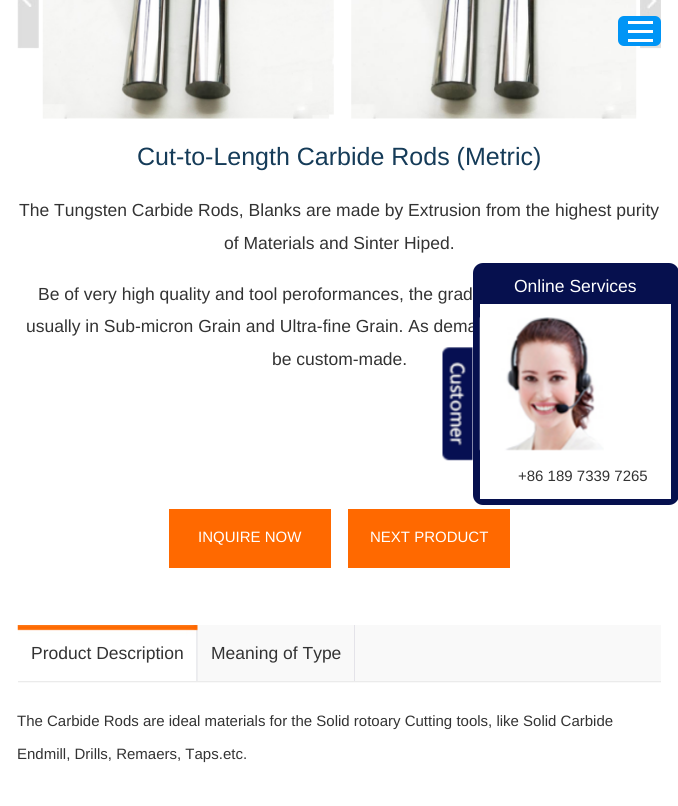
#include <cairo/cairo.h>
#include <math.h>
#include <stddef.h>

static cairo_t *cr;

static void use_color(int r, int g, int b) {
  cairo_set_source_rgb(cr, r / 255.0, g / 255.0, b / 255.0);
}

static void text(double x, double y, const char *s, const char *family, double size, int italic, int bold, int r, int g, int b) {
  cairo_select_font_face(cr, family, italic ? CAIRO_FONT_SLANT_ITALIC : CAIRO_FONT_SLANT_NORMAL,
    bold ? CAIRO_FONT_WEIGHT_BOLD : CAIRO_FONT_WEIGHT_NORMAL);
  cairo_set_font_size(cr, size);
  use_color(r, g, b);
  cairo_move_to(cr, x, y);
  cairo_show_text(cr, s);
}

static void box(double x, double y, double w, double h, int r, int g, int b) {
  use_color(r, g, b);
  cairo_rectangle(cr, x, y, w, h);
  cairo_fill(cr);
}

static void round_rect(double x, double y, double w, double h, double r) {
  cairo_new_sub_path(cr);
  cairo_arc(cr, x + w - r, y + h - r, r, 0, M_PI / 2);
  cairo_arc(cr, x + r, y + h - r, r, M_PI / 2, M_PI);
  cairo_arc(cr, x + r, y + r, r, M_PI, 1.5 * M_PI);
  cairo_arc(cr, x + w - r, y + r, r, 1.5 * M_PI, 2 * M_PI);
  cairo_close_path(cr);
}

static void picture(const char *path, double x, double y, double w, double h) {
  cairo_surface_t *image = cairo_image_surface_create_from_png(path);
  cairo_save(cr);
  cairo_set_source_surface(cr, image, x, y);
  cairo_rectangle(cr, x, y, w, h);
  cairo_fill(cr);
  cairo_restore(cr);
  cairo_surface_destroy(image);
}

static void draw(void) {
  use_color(255, 255, 255);
  cairo_paint(cr);
  picture("img_03.png", 351, 0, 286, 119);
  picture("img_04.png", 640, 0, 21, 49);
  use_color(0, 149, 246);
  round_rect(618, 16, 43, 30, 6);
  cairo_fill(cr);
  box(628, 21, 25, 3, 255, 255, 255);
  box(628, 30, 25, 3, 255, 255, 255);
  box(628, 39, 25, 3, 255, 255, 255);
  picture("img_01.png", 17, 0, 22, 49);
  picture("img_02.png", 42, 0, 292, 119);
  box(169, 509, 162, 59, 255, 105, 0);
  box(348, 509, 162, 59, 255, 105, 0);
  box(18, 625, 643, 58, 249, 249, 249);
  box(18, 681, 643, 1, 235, 235, 235);
  picture("img_05.png", 17, 625, 181, 56);
  box(354, 625, 1, 56, 228, 227, 233);
  picture("img_06.png", 442, 347, 31, 114);
  text(137, 165, "Cut-to-Length Carbide Rods (Metric)", "Liberation Sans", 25, 0, 0, 21, 59, 88);
  text(19, 216, "The Tungsten Carbide Rods, Blanks are made by Extrusion from the highest purity", "Liberation Sans", 17.5, 0, 0, 51, 51, 51);
  text(224, 249, "of Materials and Sinter Hiped.", "Liberation Sans", 17.5, 0, 0, 51, 51, 51);
  text(38, 300, "Be of very high quality and tool peroformances, the grad", "Liberation Sans", 17.5, 0, 0, 51, 51, 51);
  text(26, 332, "usually in Sub-micron Grain and Ultra-fine Grain. As dema", "Liberation Sans", 17.5, 0, 0, 51, 51, 51);
  text(272, 365, "be custom-made.", "Liberation Sans", 17.5, 0, 0, 51, 51, 51);
  text(198, 542, "INQUIRE NOW", "Liberation Sans", 15, 0, 0, 255, 255, 255);
  text(370, 542, "NEXT PRODUCT", "Liberation Sans", 15, 0, 0, 255, 255, 255);
  text(31, 659, "Product Description", "Liberation Sans", 17.5, 0, 0, 51, 51, 51);
  text(211, 659, "Meaning of Type", "Liberation Sans", 17.5, 0, 0, 51, 51, 51);
  text(17, 726, "The Carbide Rods are ideal materials for the Solid rotoary Cutting tools, like Solid Carbide", "Liberation Sans", 15, 0, 0, 51, 51, 51);
  text(17, 759, "Endmill, Drills, Remaers, Taps.etc.", "Liberation Sans", 15, 0, 0, 51, 51, 51);
  use_color(6, 16, 78);
  round_rect(473, 263, 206, 242, 10);
  cairo_fill(cr);
  text(514, 292, "Online Services", "Liberation Sans", 17.5, 0, 0, 255, 255, 255);
  box(480, 304, 191, 195, 255, 255, 255);
  picture("img_07.png", 479, 317, 125, 134);
  text(518, 481, "+86 189 7339 7265", "Liberation Sans", 15, 0, 0, 51, 51, 51);
}

int main(void) {
  cairo_surface_t *surface = cairo_image_surface_create(CAIRO_FORMAT_RGB24, 678, 806);
  cr = cairo_create(surface);
  cairo_font_options_t *options = cairo_font_options_create();
  cairo_font_options_set_hint_metrics(options, CAIRO_HINT_METRICS_OFF);
  cairo_font_options_set_hint_style(options, CAIRO_HINT_STYLE_NONE);
  cairo_set_font_options(cr, options);
  cairo_set_miter_limit(cr, 4);
  draw();
  cairo_surface_write_to_png(surface, "out.png");
  cairo_font_options_destroy(options);
  cairo_destroy(cr);
  cairo_surface_destroy(surface);
  return 0;
}
